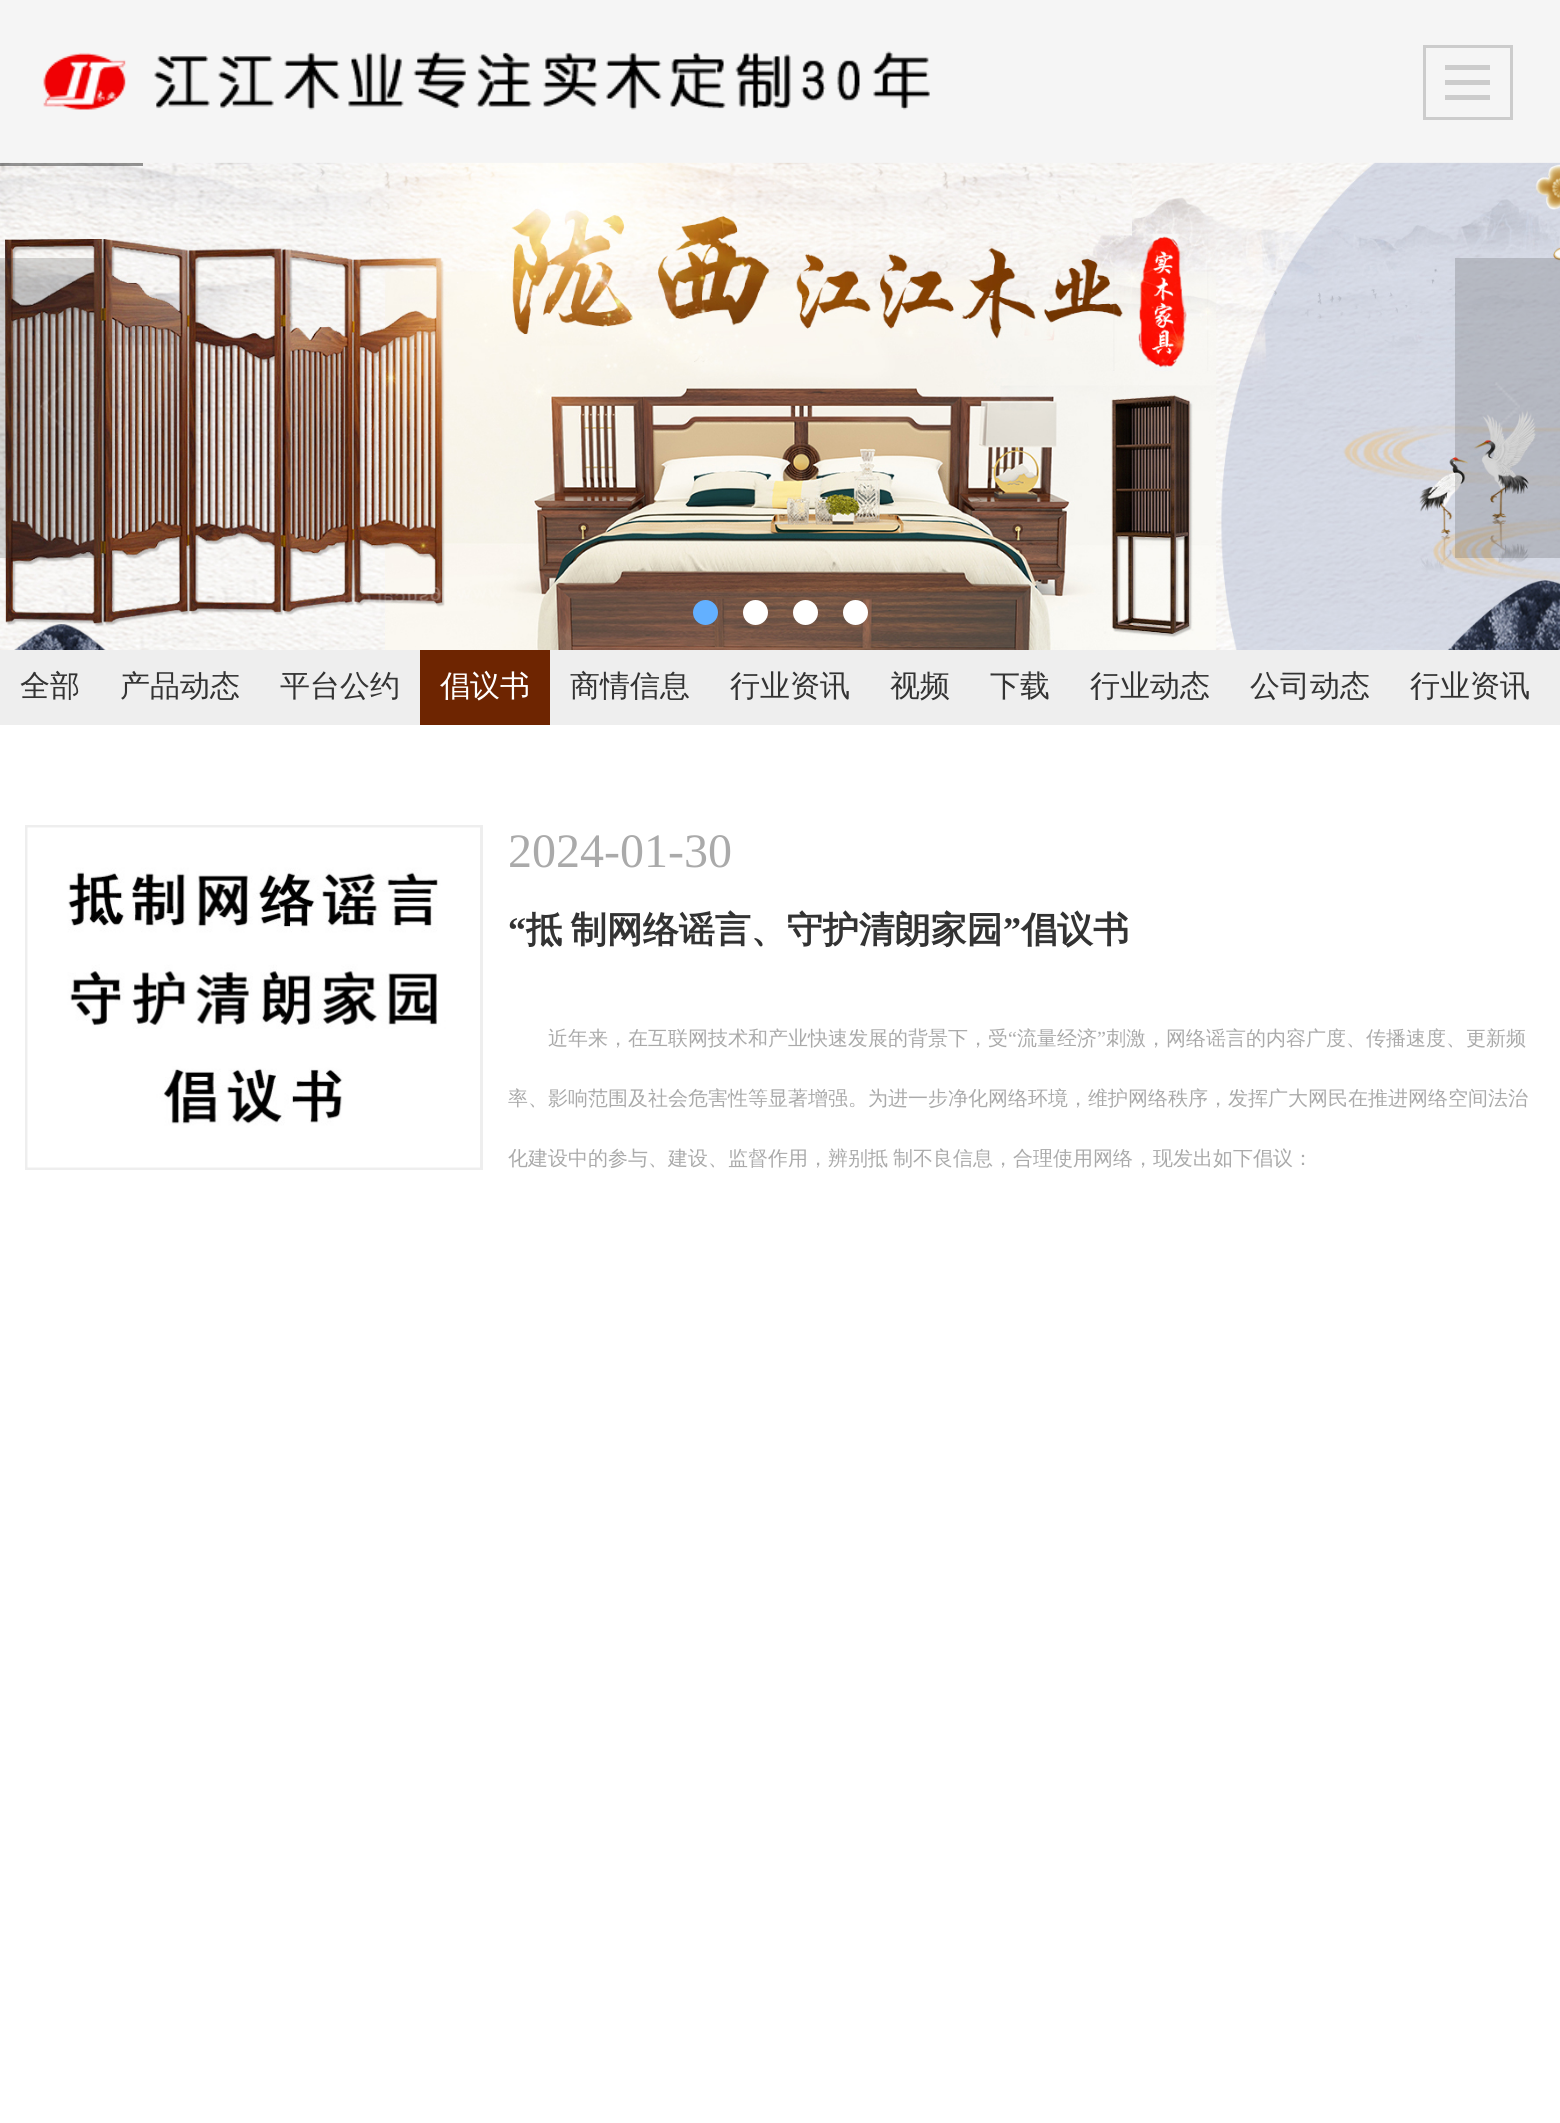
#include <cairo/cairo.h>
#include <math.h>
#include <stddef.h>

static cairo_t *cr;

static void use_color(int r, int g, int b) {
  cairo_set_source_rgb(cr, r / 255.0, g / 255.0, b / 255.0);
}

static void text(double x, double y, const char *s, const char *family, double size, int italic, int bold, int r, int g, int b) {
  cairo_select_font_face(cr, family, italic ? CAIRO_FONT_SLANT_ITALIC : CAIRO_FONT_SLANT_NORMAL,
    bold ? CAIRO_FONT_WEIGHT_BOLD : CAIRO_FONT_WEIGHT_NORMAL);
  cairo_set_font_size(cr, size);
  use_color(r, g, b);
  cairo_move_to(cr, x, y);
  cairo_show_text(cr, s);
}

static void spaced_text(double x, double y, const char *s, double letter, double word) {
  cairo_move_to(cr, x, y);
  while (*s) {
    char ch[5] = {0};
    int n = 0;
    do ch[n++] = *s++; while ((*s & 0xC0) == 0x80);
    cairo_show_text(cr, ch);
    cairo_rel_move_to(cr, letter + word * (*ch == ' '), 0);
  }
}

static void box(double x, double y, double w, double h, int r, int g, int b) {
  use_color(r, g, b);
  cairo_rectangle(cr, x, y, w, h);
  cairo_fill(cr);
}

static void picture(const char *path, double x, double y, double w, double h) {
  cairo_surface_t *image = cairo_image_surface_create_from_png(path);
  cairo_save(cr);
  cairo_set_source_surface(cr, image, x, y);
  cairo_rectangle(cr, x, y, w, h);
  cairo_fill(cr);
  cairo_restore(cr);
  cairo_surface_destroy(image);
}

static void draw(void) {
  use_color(255, 255, 255);
  cairo_paint(cr);
  box(0, 0, 1560, 163, 245, 245, 245);
  picture("img_01.png", 43, 51, 887, 59);
  cairo_rectangle(cr, 1424.5, 46.5, 87, 72);
  use_color(204, 204, 204);
  cairo_set_line_width(cr, 3);
  cairo_stroke(cr);
  box(1445, 65, 45, 5, 204, 204, 204);
  box(1445, 80, 45, 5, 204, 204, 204);
  box(1445, 95, 45, 5, 204, 204, 204);
  picture("img_02.png", 0, 162, 1560, 488);
  cairo_set_source_rgba(cr, 0, 0, 0, 0.4);
  cairo_rectangle(cr, 0, 163, 143, 3);
  cairo_fill(cr);
  cairo_set_source_rgba(cr, 0.224, 0.224, 0.224, 0.2);
  cairo_rectangle(cr, 0, 258, 105, 300);
  cairo_fill(cr);
  picture("img_03.png", 40, 382, 26, 49);
  cairo_rectangle(cr, 1455, 258, 105, 300);
  cairo_fill(cr);
  picture("img_04.png", 1495, 382, 25, 45);
  use_color(99, 176, 255);
  cairo_arc(cr, 705.5, 612.5, 12.5, 0, 2 * M_PI);
  cairo_fill(cr);
  use_color(255, 255, 255);
  cairo_arc(cr, 755.5, 612.5, 12.5, 0, 2 * M_PI);
  cairo_fill(cr);
  cairo_arc(cr, 805.5, 612.5, 12.5, 0, 2 * M_PI);
  cairo_fill(cr);
  cairo_arc(cr, 855.5, 612.5, 12.5, 0, 2 * M_PI);
  cairo_fill(cr);
  box(0, 650, 1560, 75, 238, 238, 238);
  box(420, 650, 130, 75, 110, 37, 1);
  cairo_rectangle(cr, 26.5, 826.5, 455, 342);
  use_color(238, 238, 238);
  cairo_stroke(cr);
  picture("img_05.png", 27, 827, 453, 341);
  text(20, 696, "全部", "WenQuanYi Zen Hei Medium", 30, 0, 0, 51, 51, 51);
  text(120, 696, "产品动态", "WenQuanYi Zen Hei Medium", 30, 0, 0, 51, 51, 51);
  text(280, 696, "平台公约", "WenQuanYi Zen Hei Medium", 30, 0, 0, 51, 51, 51);
  text(440, 696, "倡议书", "WenQuanYi Zen Hei Medium", 30, 0, 0, 255, 255, 255);
  text(570, 696, "商情信息", "WenQuanYi Zen Hei Medium", 30, 0, 0, 51, 51, 51);
  text(730, 696, "行业资讯", "WenQuanYi Zen Hei Medium", 30, 0, 0, 51, 51, 51);
  text(890, 696, "视频", "WenQuanYi Zen Hei Medium", 30, 0, 0, 51, 51, 51);
  text(990, 696, "下载", "WenQuanYi Zen Hei Medium", 30, 0, 0, 51, 51, 51);
  text(1090, 696, "行业动态", "WenQuanYi Zen Hei Medium", 30, 0, 0, 51, 51, 51);
  text(1250, 696, "公司动态", "WenQuanYi Zen Hei Medium", 30, 0, 0, 51, 51, 51);
  text(1410, 696, "行业资讯", "WenQuanYi Zen Hei Medium", 30, 0, 0, 51, 51, 51);
  text(508, 867, "2024-01-30", "Liberation Serif", 48, 0, 0, 170, 170, 170);
  text(508, 942, "“", "Liberation Serif", 36, 0, 1, 51, 51, 51);
  cairo_select_font_face(cr, "WenQuanYi Zen Hei", CAIRO_FONT_SLANT_NORMAL, CAIRO_FONT_WEIGHT_BOLD);
  spaced_text(526, 942, "抵 制网络谣言、守护清朗家园", 0, -2);
  text(1003, 942, "”", "Liberation Serif", 36, 0, 1, 51, 51, 51);
  text(1021, 942, "倡议书", "WenQuanYi Zen Hei", 36, 0, 1, 51, 51, 51);
  text(548, 1045, "近年来，在互联网技术和产业快速发展的背景下，受", "WenQuanYi Zen Hei Medium", 20, 0, 0, 170, 170, 170);
  text(1008, 1045, "“", "Liberation Serif", 20, 0, 0, 170, 170, 170);
  text(1017, 1045, "流量经济", "WenQuanYi Zen Hei Medium", 20, 0, 0, 170, 170, 170);
  text(1097, 1045, "”", "Liberation Serif", 20, 0, 0, 170, 170, 170);
  text(1106, 1045, "刺激，网络谣言的内容广度、传播速度、更新频", "WenQuanYi Zen Hei Medium", 20, 0, 0, 170, 170, 170);
  text(508, 1105, "率、影响范围及社会危害性等显著增强。为进一步净化网络环境，维护网络秩序，发挥广大网民在推进网络空间法治", "WenQuanYi Zen Hei Medium", 20, 0, 0, 170, 170, 170);
  spaced_text(508, 1165, "化建设中的参与、建设、监督作用，辨别抵 制不良信息，合理使用网络，现发出如下倡议：", 0, -1);
}

int main(void) {
  cairo_surface_t *surface = cairo_image_surface_create(CAIRO_FORMAT_RGB24, 1560, 2123);
  cr = cairo_create(surface);
  cairo_font_options_t *options = cairo_font_options_create();
  cairo_font_options_set_hint_metrics(options, CAIRO_HINT_METRICS_OFF);
  cairo_font_options_set_hint_style(options, CAIRO_HINT_STYLE_NONE);
  cairo_set_font_options(cr, options);
  cairo_set_miter_limit(cr, 4);
  draw();
  cairo_surface_write_to_png(surface, "out.png");
  cairo_font_options_destroy(options);
  cairo_destroy(cr);
  cairo_surface_destroy(surface);
  return 0;
}
